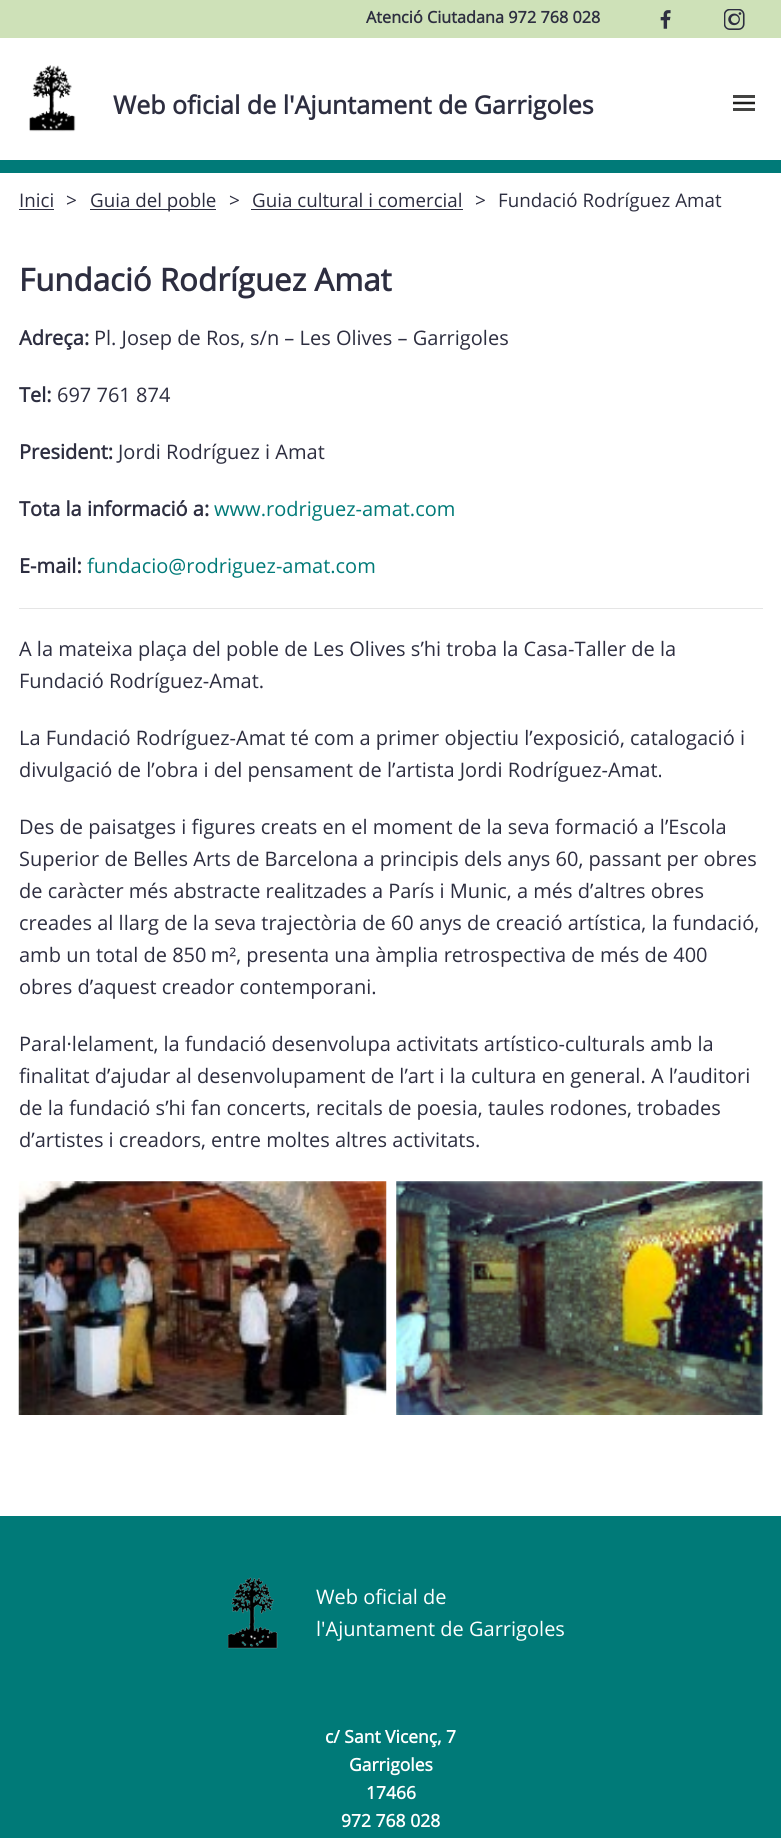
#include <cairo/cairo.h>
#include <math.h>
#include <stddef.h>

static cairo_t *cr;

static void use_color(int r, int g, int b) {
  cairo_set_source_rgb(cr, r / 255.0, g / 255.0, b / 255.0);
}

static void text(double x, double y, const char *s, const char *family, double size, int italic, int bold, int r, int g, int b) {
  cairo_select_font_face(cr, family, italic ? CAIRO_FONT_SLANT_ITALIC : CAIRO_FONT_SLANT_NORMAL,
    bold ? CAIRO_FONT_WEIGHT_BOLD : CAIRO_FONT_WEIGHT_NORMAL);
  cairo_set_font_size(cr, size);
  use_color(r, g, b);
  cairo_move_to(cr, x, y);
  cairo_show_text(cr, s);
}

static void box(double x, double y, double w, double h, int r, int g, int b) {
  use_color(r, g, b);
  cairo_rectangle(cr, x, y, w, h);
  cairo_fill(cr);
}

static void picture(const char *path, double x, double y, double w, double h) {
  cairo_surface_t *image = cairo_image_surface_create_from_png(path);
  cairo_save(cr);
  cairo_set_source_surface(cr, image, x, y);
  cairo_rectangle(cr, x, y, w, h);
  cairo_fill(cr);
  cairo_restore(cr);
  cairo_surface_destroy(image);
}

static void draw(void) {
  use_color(255, 255, 255);
  cairo_paint(cr);
  box(0, 160, 781, 13, 0, 122, 120);
  box(0, 0, 781, 38, 206, 225, 184);
  picture("img_01.png", 660, 10, 11, 19);
  picture("img_02.png", 724, 9, 21, 21);
  picture("img_03.png", 29, 65, 47, 67);
  box(733, 95, 22, 3, 67, 67, 65);
  cairo_new_path(cr);
  cairo_move_to(cr, 733, 103);
  cairo_line_to(cr, 755, 103);
  use_color(29, 29, 27);
  cairo_set_line_width(cr, 2.5);
  cairo_stroke(cr);
  box(733, 108, 22, 3, 67, 67, 65);
  box(19, 209, 35, 1, 45, 46, 64);
  box(90, 209, 126, 1, 45, 46, 64);
  box(251, 209, 212, 1, 45, 46, 64);
  box(19, 608, 744, 1, 229, 229, 229);
  picture("img_04.png", 18, 1181, 369, 234);
  picture("img_05.png", 396, 1181, 367, 234);
  box(0, 1516, 781, 322, 0, 122, 120);
  picture("img_06.png", 227, 1577, 51, 72);
  text(366, 23, "Atenció Ciutadana 972 768 028", "Open Sans", 16.25, 0, 1, 45, 46, 64);
  text(113, 114, "Web oficial de l'Ajuntament de Garrigoles", "Open Sans", 25, 0, 1, 45, 46, 64);
  text(19, 207, "Inici", "Open Sans", 18.75, 0, 0, 45, 46, 64);
  text(66, 207, ">", "Open Sans", 19, 0, 0, 45, 46, 64);
  text(90, 207, "Guia del poble", "Open Sans", 18.75, 0, 0, 45, 46, 64);
  text(229, 207, ">", "Open Sans", 19, 0, 0, 45, 46, 64);
  text(252, 207, "Guia cultural i comercial", "Open Sans", 18.75, 0, 0, 45, 46, 64);
  text(475, 207, ">", "Open Sans", 19, 0, 0, 45, 46, 64);
  text(498, 207, "Fundació Rodríguez Amat", "Open Sans", 18.75, 0, 0, 45, 46, 64);
  text(19, 291, "Fundació Rodríguez Amat", "Open Sans", 31.25, 0, 1, 45, 46, 64);
  text(19, 345, "Adreça:", "Open Sans", 20, 0, 1, 45, 46, 64);
  text(94, 345, "Pl. Josep de Ros, s/n – Les Olives – Garrigoles", "Open Sans", 20, 0, 0, 45, 46, 64);
  text(19, 402, "Tel:", "Open Sans", 20, 0, 1, 45, 46, 64);
  text(57, 402, "697 761 874", "Open Sans", 20, 0, 0, 45, 46, 64);
  text(19, 459, "President:", "Open Sans", 20, 0, 1, 45, 46, 64);
  text(118, 459, "Jordi Rodríguez i Amat", "Open Sans", 20, 0, 0, 45, 46, 64);
  text(19, 516, "Tota la informació a:", "Open Sans", 20, 0, 1, 45, 46, 64);
  text(214, 516, "www.rodriguez-amat.com", "Open Sans", 20, 0, 0, 0, 122, 120);
  text(19, 573, "E-mail:", "Open Sans", 20, 0, 1, 45, 46, 64);
  text(87, 573, "fundacio@rodriguez-amat.com", "Open Sans", 20, 0, 0, 0, 122, 120);
  text(19, 656, "A la mateixa plaça del poble de Les Olives s’hi troba la Casa-Taller de la", "Open Sans", 20, 0, 0, 45, 46, 64);
  text(19, 688, "Fundació Rodríguez-Amat.", "Open Sans", 20, 0, 0, 45, 46, 64);
  text(19, 745, "La Fundació Rodríguez-Amat té com a primer objectiu l’exposició, catalogació i", "Open Sans", 20, 0, 0, 45, 46, 64);
  text(19, 777, "divulgació de l’obra i del pensament de l’artista Jordi Rodríguez-Amat.", "Open Sans", 20, 0, 0, 45, 46, 64);
  text(19, 834, "Des de paisatges i figures creats en el moment de la seva formació a l’Escola", "Open Sans", 20, 0, 0, 45, 46, 64);
  text(19, 866, "Superior de Belles Arts de Barcelona a principis dels anys 60, passant per obres", "Open Sans", 20, 0, 0, 45, 46, 64);
  text(19, 898, "de caràcter més abstracte realitzades a París i Munic, a més d’altres obres", "Open Sans", 20, 0, 0, 45, 46, 64);
  text(19, 930, "creades al llarg de la seva trajectòria de 60 anys de creació artística, la fundació,", "Open Sans", 20, 0, 0, 45, 46, 64);
  text(19, 962, "amb un total de 850 m², presenta una àmplia retrospectiva de més de 400", "Open Sans", 20, 0, 0, 45, 46, 64);
  text(19, 994, "obres d’aquest creador contemporani.", "Open Sans", 20, 0, 0, 45, 46, 64);
  text(19, 1051, "Paral·lelament, la fundació desenvolupa activitats artístico-culturals amb la", "Open Sans", 20, 0, 0, 45, 46, 64);
  text(19, 1083, "finalitat d’ajudar al desenvolupament de l’art i la cultura en general. A l’auditori", "Open Sans", 20, 0, 0, 45, 46, 64);
  text(19, 1115, "de la fundació s’hi fan concerts, recitals de poesia, taules rodones, trobades", "Open Sans", 20, 0, 0, 45, 46, 64);
  text(19, 1147, "d’artistes i creadors, entre moltes altres activitats.", "Open Sans", 20, 0, 0, 45, 46, 64);
  text(316, 1604, "Web oficial de", "Open Sans", 20, 0, 0, 255, 255, 255);
  text(316, 1636, "l'Ajuntament de Garrigoles", "Open Sans", 20, 0, 0, 255, 255, 255);
  text(325, 1743, "c/ Sant Vicenç, 7", "Open Sans", 17.5, 0, 1, 255, 255, 255);
  text(349, 1771, "Garrigoles", "Open Sans", 17.5, 0, 1, 255, 255, 255);
  text(366, 1799, "17466", "Open Sans", 17.5, 0, 1, 255, 255, 255);
  text(341, 1827, "972 768 028", "Open Sans", 17.5, 0, 1, 255, 255, 255);
}

int main(void) {
  cairo_surface_t *surface = cairo_image_surface_create(CAIRO_FORMAT_RGB24, 781, 1838);
  cr = cairo_create(surface);
  cairo_font_options_t *options = cairo_font_options_create();
  cairo_font_options_set_hint_metrics(options, CAIRO_HINT_METRICS_OFF);
  cairo_font_options_set_hint_style(options, CAIRO_HINT_STYLE_NONE);
  cairo_set_font_options(cr, options);
  cairo_set_miter_limit(cr, 4);
  draw();
  cairo_surface_write_to_png(surface, "out.png");
  cairo_font_options_destroy(options);
  cairo_destroy(cr);
  cairo_surface_destroy(surface);
  return 0;
}
